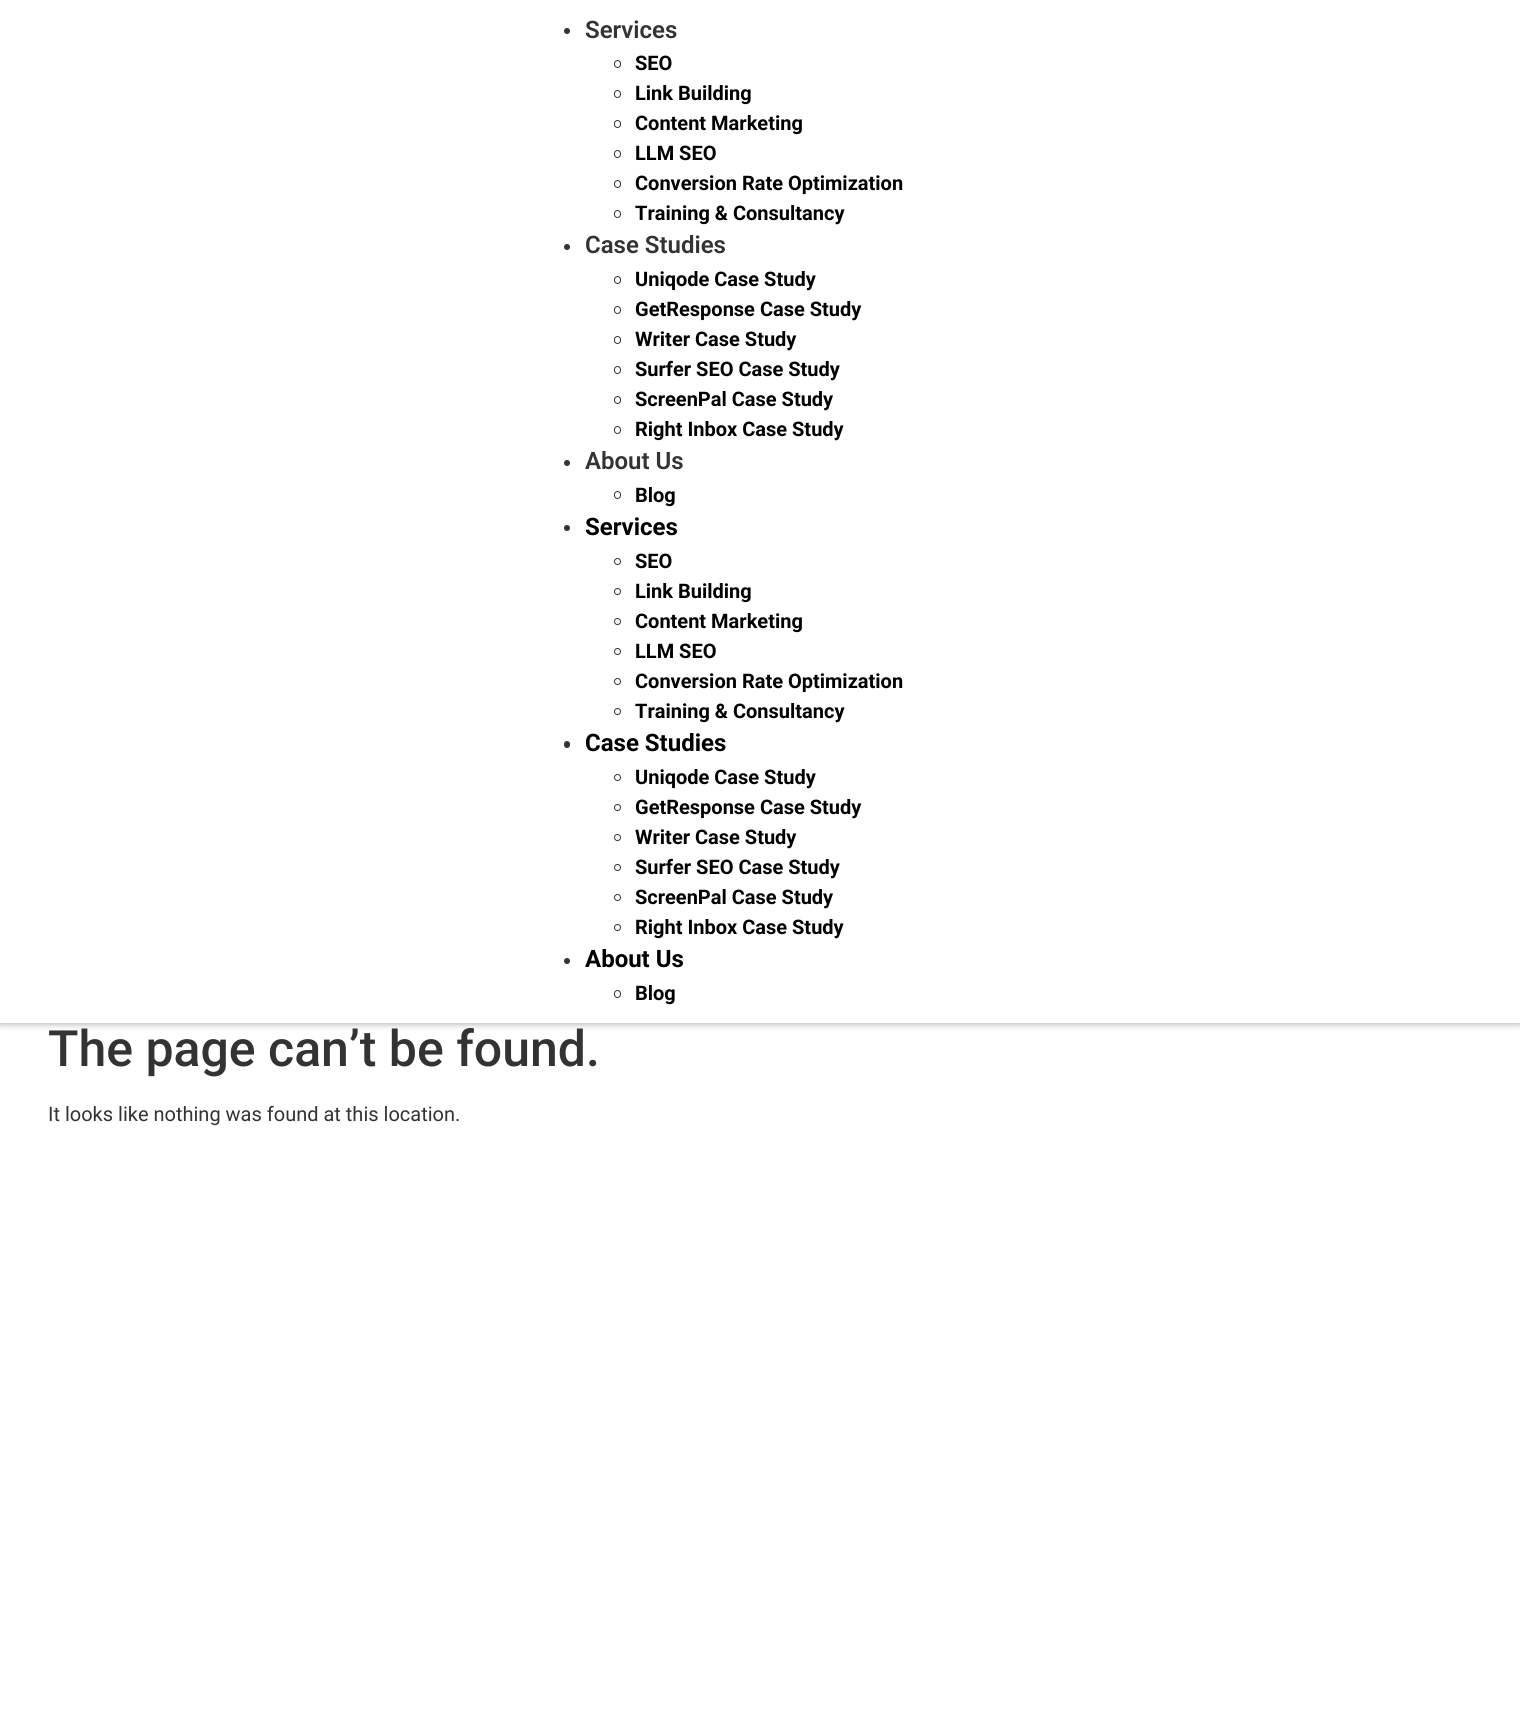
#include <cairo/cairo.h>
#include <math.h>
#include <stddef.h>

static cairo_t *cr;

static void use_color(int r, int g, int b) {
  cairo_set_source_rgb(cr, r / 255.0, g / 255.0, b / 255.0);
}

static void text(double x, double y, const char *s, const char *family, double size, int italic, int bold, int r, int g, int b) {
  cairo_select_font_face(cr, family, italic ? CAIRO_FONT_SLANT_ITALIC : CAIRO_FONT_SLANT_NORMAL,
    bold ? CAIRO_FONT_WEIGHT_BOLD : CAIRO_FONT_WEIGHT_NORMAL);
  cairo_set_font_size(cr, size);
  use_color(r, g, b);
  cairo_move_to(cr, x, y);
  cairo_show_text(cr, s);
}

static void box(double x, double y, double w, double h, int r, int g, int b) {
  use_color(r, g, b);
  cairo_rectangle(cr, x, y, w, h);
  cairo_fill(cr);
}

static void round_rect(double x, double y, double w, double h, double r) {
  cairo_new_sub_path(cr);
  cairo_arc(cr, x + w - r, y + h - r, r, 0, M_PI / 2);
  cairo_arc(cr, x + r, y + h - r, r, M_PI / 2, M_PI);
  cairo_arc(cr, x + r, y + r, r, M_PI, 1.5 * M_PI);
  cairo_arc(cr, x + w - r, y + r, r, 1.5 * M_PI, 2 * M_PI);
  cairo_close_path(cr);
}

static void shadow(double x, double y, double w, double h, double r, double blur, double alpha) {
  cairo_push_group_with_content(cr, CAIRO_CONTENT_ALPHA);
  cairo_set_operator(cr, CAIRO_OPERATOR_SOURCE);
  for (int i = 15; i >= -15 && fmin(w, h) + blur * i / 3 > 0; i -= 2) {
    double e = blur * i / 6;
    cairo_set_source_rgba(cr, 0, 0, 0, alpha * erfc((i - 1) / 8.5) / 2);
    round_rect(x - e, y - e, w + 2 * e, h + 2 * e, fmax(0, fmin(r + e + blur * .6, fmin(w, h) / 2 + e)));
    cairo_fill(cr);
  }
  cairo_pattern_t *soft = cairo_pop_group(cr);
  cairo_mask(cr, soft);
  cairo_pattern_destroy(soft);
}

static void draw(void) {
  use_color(255, 255, 255);
  cairo_paint(cr);
  use_color(0, 0, 0);
  shadow(0, 3, 1520, 1022, 0, 3, 0.25);
  box(0, 0, 1520, 1023, 255, 255, 255);
  use_color(51, 51, 51);
  cairo_arc(cr, 567, 31, 3, 0, 2 * M_PI);
  cairo_fill(cr);
  round_rect(614.5, 60.5, 6, 7, 3);
  cairo_set_line_width(cr, 1);
  cairo_stroke(cr);
  round_rect(614.5, 90.5, 6, 7, 3);
  cairo_stroke(cr);
  round_rect(614.5, 120.5, 6, 7, 3);
  cairo_stroke(cr);
  round_rect(614.5, 150.5, 6, 7, 3);
  cairo_stroke(cr);
  round_rect(614.5, 180.5, 6, 7, 3);
  cairo_stroke(cr);
  round_rect(614.5, 210.5, 6, 7, 3);
  cairo_stroke(cr);
  cairo_arc(cr, 567, 247, 3, 0, 2 * M_PI);
  cairo_fill(cr);
  round_rect(614.5, 276.5, 6, 7, 3);
  cairo_stroke(cr);
  round_rect(614.5, 306.5, 6, 7, 3);
  cairo_stroke(cr);
  round_rect(614.5, 336.5, 6, 7, 3);
  cairo_stroke(cr);
  round_rect(614.5, 366.5, 6, 7, 3);
  cairo_stroke(cr);
  round_rect(614.5, 396.5, 6, 7, 3);
  cairo_stroke(cr);
  round_rect(614.5, 426.5, 6, 7, 3);
  cairo_stroke(cr);
  cairo_arc(cr, 567, 463, 3, 0, 2 * M_PI);
  cairo_fill(cr);
  round_rect(614.5, 491.5, 6, 7, 3);
  cairo_stroke(cr);
  cairo_arc(cr, 567, 528, 3, 0, 2 * M_PI);
  cairo_fill(cr);
  cairo_arc(cr, 617.5, 561.5, 3, 0, 2 * M_PI);
  cairo_stroke(cr);
  cairo_arc(cr, 617.5, 591.5, 3, 0, 2 * M_PI);
  cairo_stroke(cr);
  cairo_arc(cr, 617.5, 621.5, 3, 0, 2 * M_PI);
  cairo_stroke(cr);
  cairo_arc(cr, 617.5, 651.5, 3, 0, 2 * M_PI);
  cairo_stroke(cr);
  cairo_arc(cr, 617.5, 681.5, 3, 0, 2 * M_PI);
  cairo_stroke(cr);
  cairo_arc(cr, 617.5, 711.5, 3, 0, 2 * M_PI);
  cairo_stroke(cr);
  round_rect(564, 741, 6, 7, 3);
  cairo_fill(cr);
  cairo_arc(cr, 617.5, 777.5, 3, 0, 2 * M_PI);
  cairo_stroke(cr);
  cairo_arc(cr, 617.5, 807.5, 3, 0, 2 * M_PI);
  cairo_stroke(cr);
  cairo_arc(cr, 617.5, 837.5, 3, 0, 2 * M_PI);
  cairo_stroke(cr);
  cairo_arc(cr, 617.5, 867.5, 3, 0, 2 * M_PI);
  cairo_stroke(cr);
  cairo_arc(cr, 617.5, 897.5, 3, 0, 2 * M_PI);
  cairo_stroke(cr);
  cairo_arc(cr, 617.5, 927.5, 3, 0, 2 * M_PI);
  cairo_stroke(cr);
  cairo_arc(cr, 567, 961, 3, 0, 2 * M_PI);
  cairo_fill(cr);
  round_rect(614.5, 990.5, 6, 7, 3);
  cairo_stroke(cr);
  text(585, 38, "Services", "Roboto SemiBold", 24, 0, 0, 51, 51, 51);
  text(635, 70, "SEO", "Roboto", 20, 0, 1, 0, 0, 0);
  text(635, 100, "Link Building", "Roboto", 20, 0, 1, 0, 0, 0);
  text(635, 130, "Content Marketing", "Roboto", 20, 0, 1, 0, 0, 0);
  text(635, 160, "LLM SEO", "Roboto", 20, 0, 1, 0, 0, 0);
  text(635, 190, "Conversion Rate Optimization", "Roboto", 20, 0, 1, 0, 0, 0);
  text(635, 220, "Training & Consultancy", "Roboto", 20, 0, 1, 0, 0, 0);
  text(585, 253, "Case Studies", "Roboto SemiBold", 24, 0, 0, 51, 51, 51);
  text(635, 286, "Uniqode Case Study", "Roboto", 20, 0, 1, 0, 0, 0);
  text(635, 316, "GetResponse Case Study", "Roboto", 20, 0, 1, 0, 0, 0);
  text(635, 346, "Writer Case Study", "Roboto", 20, 0, 1, 0, 0, 0);
  text(635, 376, "Surfer SEO Case Study", "Roboto", 20, 0, 1, 0, 0, 0);
  text(635, 406, "ScreenPal Case Study", "Roboto", 20, 0, 1, 0, 0, 0);
  text(635, 436, "Right Inbox Case Study", "Roboto", 20, 0, 1, 0, 0, 0);
  text(585, 469, "About Us", "Roboto SemiBold", 24, 0, 0, 51, 51, 51);
  text(635, 502, "Blog", "Roboto", 20, 0, 1, 0, 0, 0);
  text(585, 535, "Services", "Roboto", 24, 0, 1, 0, 0, 0);
  text(635, 568, "SEO", "Roboto", 20, 0, 1, 0, 0, 0);
  text(635, 598, "Link Building", "Roboto", 20, 0, 1, 0, 0, 0);
  text(635, 628, "Content Marketing", "Roboto", 20, 0, 1, 0, 0, 0);
  text(635, 658, "LLM SEO", "Roboto", 20, 0, 1, 0, 0, 0);
  text(635, 688, "Conversion Rate Optimization", "Roboto", 20, 0, 1, 0, 0, 0);
  text(635, 718, "Training & Consultancy", "Roboto", 20, 0, 1, 0, 0, 0);
  text(585, 751, "Case Studies", "Roboto", 24, 0, 1, 0, 0, 0);
  text(635, 784, "Uniqode Case Study", "Roboto", 20, 0, 1, 0, 0, 0);
  text(635, 814, "GetResponse Case Study", "Roboto", 20, 0, 1, 0, 0, 0);
  text(635, 844, "Writer Case Study", "Roboto", 20, 0, 1, 0, 0, 0);
  text(635, 874, "Surfer SEO Case Study", "Roboto", 20, 0, 1, 0, 0, 0);
  text(635, 904, "ScreenPal Case Study", "Roboto", 20, 0, 1, 0, 0, 0);
  text(635, 934, "Right Inbox Case Study", "Roboto", 20, 0, 1, 0, 0, 0);
  text(585, 967, "About Us", "Roboto", 24, 0, 1, 0, 0, 0);
  text(635, 1000, "Blog", "Roboto", 20, 0, 1, 0, 0, 0);
  text(48, 1066, "The page can’t be found.", "Roboto Medium", 50, 0, 0, 51, 51, 51);
  text(48, 1121, "It looks like nothing was found at this location.", "Roboto", 20, 0, 0, 51, 51, 51);
}

int main(void) {
  cairo_surface_t *surface = cairo_image_surface_create(CAIRO_FORMAT_RGB24, 1520, 1710);
  cr = cairo_create(surface);
  cairo_font_options_t *options = cairo_font_options_create();
  cairo_font_options_set_hint_metrics(options, CAIRO_HINT_METRICS_OFF);
  cairo_font_options_set_hint_style(options, CAIRO_HINT_STYLE_NONE);
  cairo_set_font_options(cr, options);
  cairo_set_miter_limit(cr, 4);
  draw();
  cairo_surface_write_to_png(surface, "out.png");
  cairo_font_options_destroy(options);
  cairo_destroy(cr);
  cairo_surface_destroy(surface);
  return 0;
}
